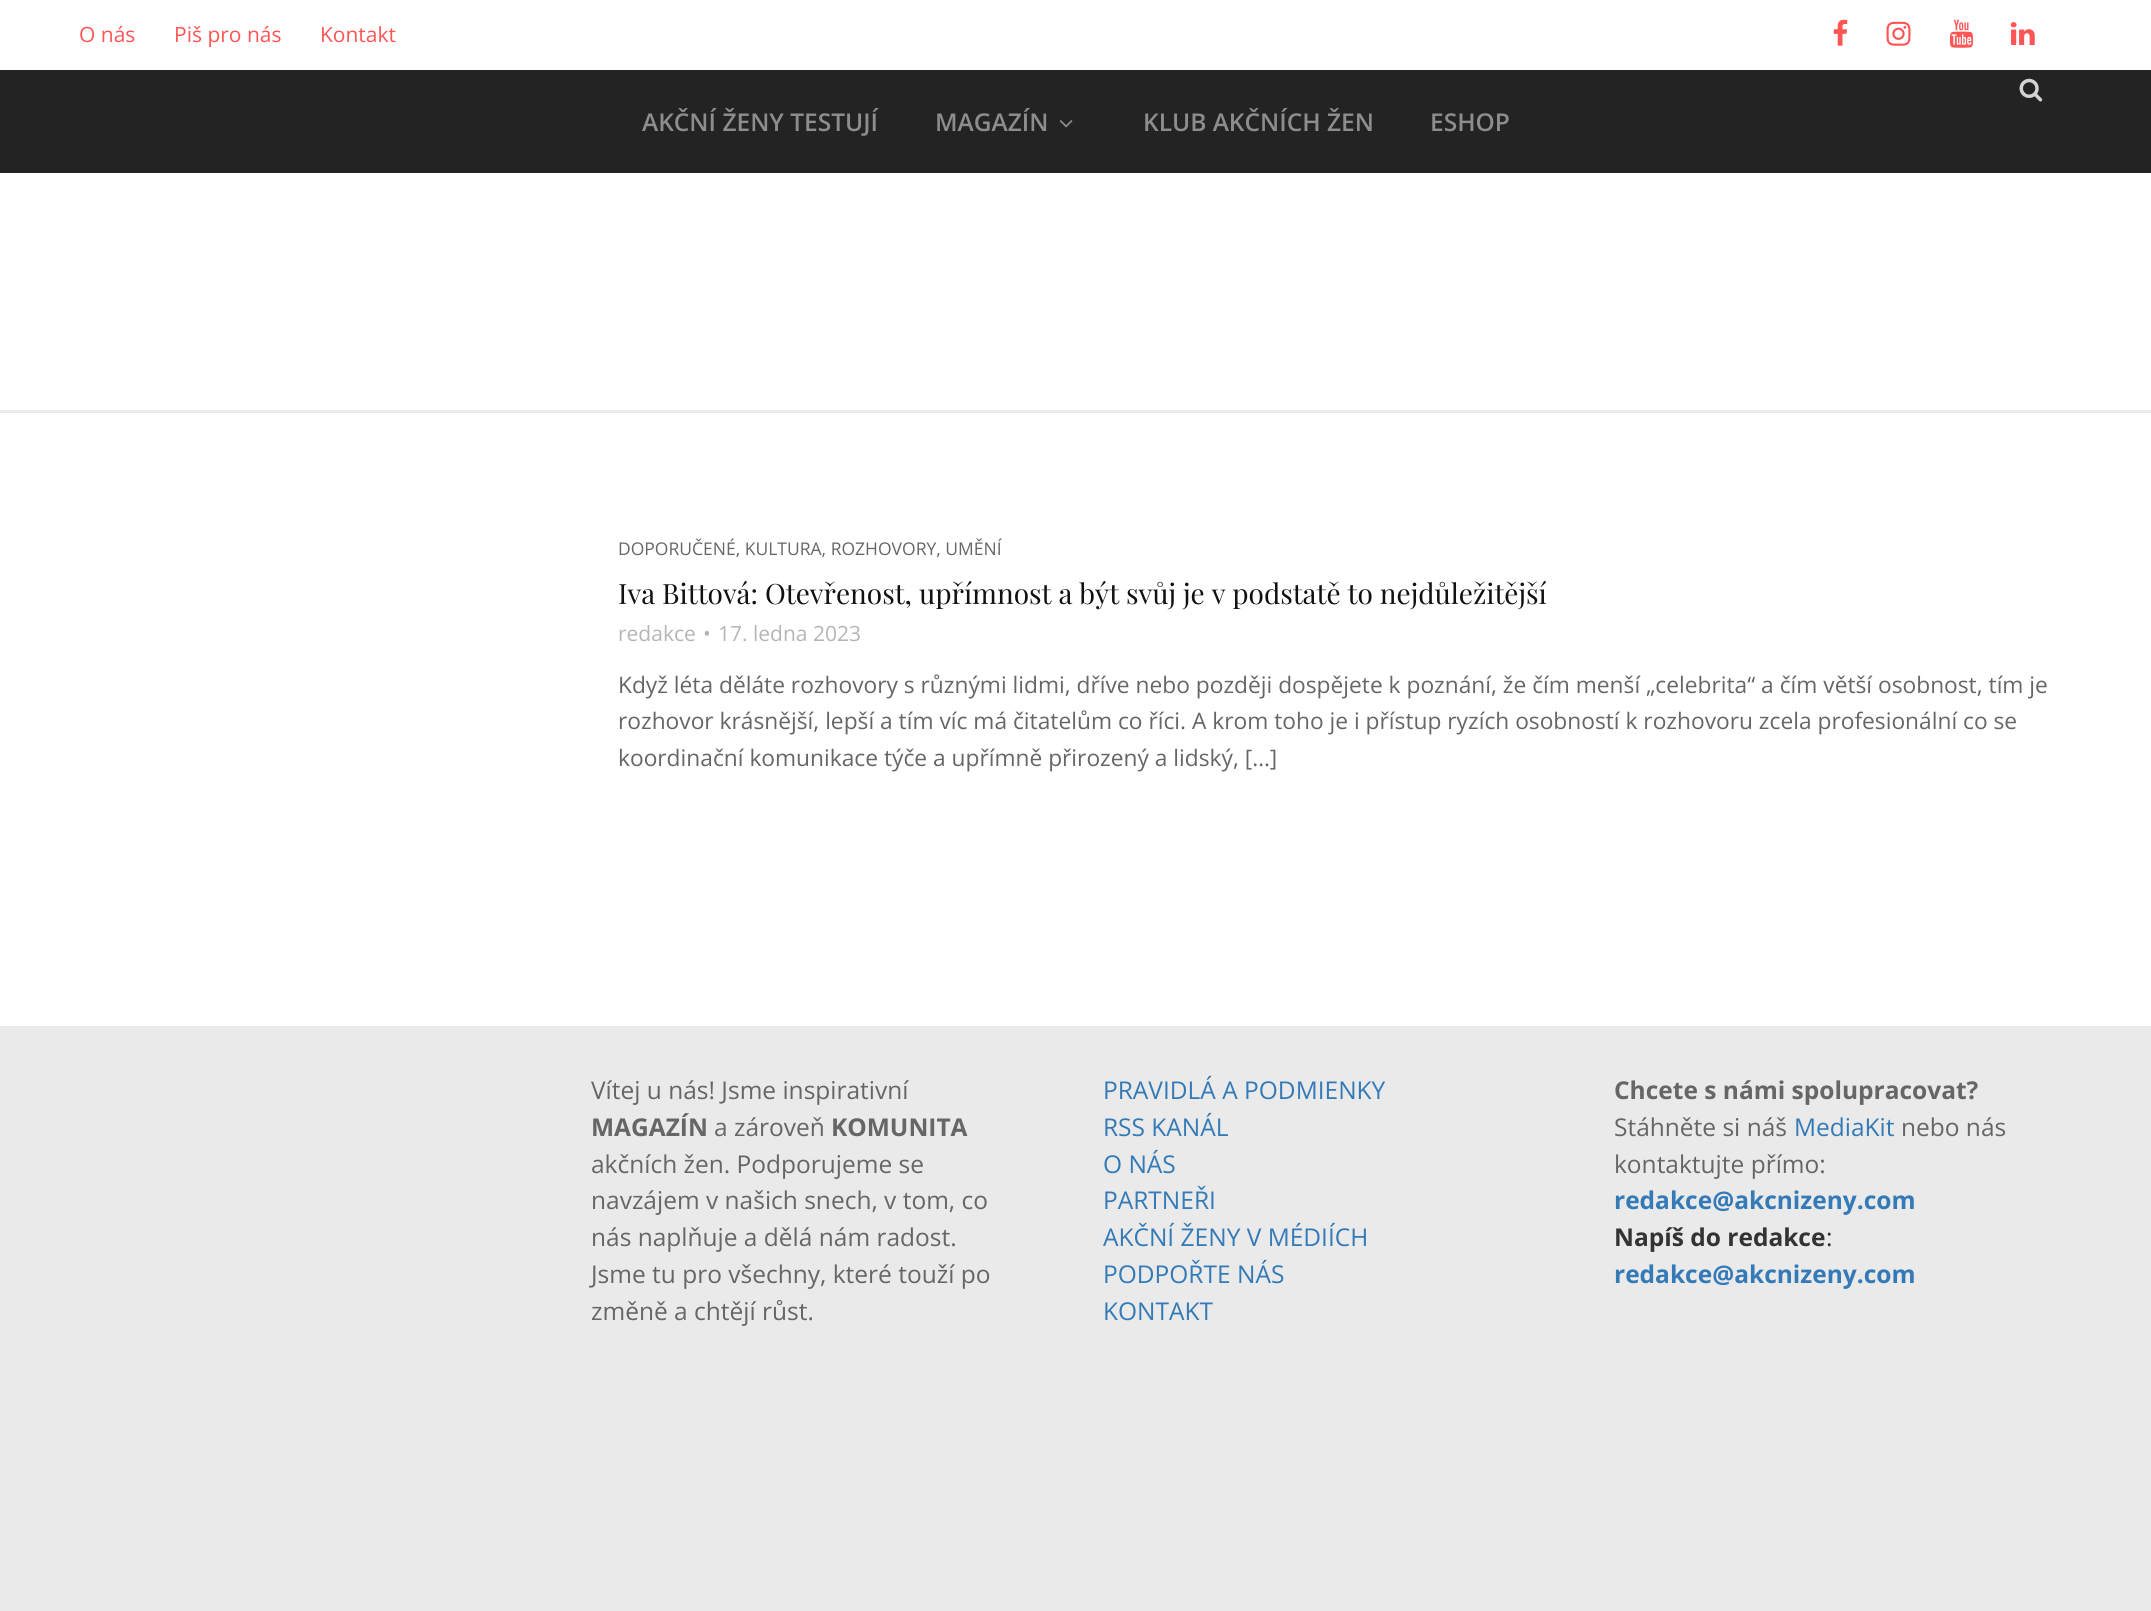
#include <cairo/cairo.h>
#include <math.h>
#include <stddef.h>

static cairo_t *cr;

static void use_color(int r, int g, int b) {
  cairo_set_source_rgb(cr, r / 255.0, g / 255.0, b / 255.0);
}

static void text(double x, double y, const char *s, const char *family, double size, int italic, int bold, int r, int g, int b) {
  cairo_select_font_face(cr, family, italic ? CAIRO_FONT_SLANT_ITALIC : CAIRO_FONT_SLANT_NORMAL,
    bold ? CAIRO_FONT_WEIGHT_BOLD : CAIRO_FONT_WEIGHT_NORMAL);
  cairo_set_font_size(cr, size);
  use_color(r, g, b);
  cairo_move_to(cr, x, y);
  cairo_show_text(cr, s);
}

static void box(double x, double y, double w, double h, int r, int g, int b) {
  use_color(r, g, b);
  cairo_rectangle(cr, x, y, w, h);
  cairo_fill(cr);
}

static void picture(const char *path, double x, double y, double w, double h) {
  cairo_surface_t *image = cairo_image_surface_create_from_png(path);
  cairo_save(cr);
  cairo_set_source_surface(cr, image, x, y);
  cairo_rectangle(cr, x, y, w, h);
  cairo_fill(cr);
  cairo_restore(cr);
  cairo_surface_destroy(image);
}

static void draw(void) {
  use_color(255, 255, 255);
  cairo_paint(cr);
  box(0, 410, 2151, 3, 234, 234, 234);
  box(0, 70, 2151, 103, 35, 35, 35);
  picture("img_01.png", 1833, 19, 15, 27);
  picture("img_02.png", 1886, 21, 25, 25);
  picture("img_03.png", 1949, 19, 25, 29);
  picture("img_04.png", 2010, 22, 25, 23);
  picture("img_05.png", 1059, 120, 14, 8);
  picture("img_06.png", 2019, 78, 24, 24);
  box(0, 1026, 2151, 585, 234, 234, 234);
  text(79, 42, "O nás", "Open Sans", 21, 0, 0, 255, 85, 85);
  text(174, 42, "Piš pro nás", "Open Sans", 21, 0, 0, 255, 85, 85);
  text(320, 42, "Kontakt", "Open Sans", 21, 0, 0, 255, 85, 85);
  text(642, 131, "AKČNÍ ŽENY TESTUJÍ", "Open Sans SemiBold", 24.5, 0, 0, 141, 141, 141);
  text(935, 131, "MAGAZÍN", "Open Sans SemiBold", 24.5, 0, 0, 141, 141, 141);
  text(1143, 131, "KLUB AKČNÍCH ŽEN", "Open Sans SemiBold", 24.5, 0, 0, 141, 141, 141);
  text(1430, 131, "ESHOP", "Open Sans SemiBold", 24.5, 0, 0, 141, 141, 141);
  text(618, 555, "DOPORUČENÉ, KULTURA, ROZHOVORY, UMĚNÍ", "Open Sans", 17.5, 0, 0, 102, 102, 102);
  text(618, 604, "Iva Bittová: Otevřenost, upřímnost a být svůj je v podstatě to nejdůležitější", "Playfair Display", 28, 0, 0, 17, 17, 17);
  text(618, 641, "redakce", "Open Sans", 21, 0, 0, 181, 181, 181);
  text(703, 641, "•", "Open Sans", 21, 0, 0, 181, 181, 181);
  text(718, 641, "17. ledna 2023", "Open Sans", 21, 0, 0, 181, 181, 181);
  text(618, 693, "Když léta děláte rozhovory s různými lidmi, dříve nebo později dospějete k poznání, že čím menší „celebrita“ a čím větší osobnost, tím je", "Open Sans", 22.75, 0, 0, 102, 102, 102);
  text(618, 729, "rozhovor krásnější, lepší a tím víc má čitatelům co říci. A krom toho je i přístup ryzích osobností k rozhovoru zcela profesionální co se", "Open Sans", 22.75, 0, 0, 102, 102, 102);
  text(618, 766, "koordinační komunikace týče a upřímně přirozený a lidský, […]", "Open Sans", 22.75, 0, 0, 102, 102, 102);
  text(591, 1099, "Vítej u nás! Jsme inspirativní", "Open Sans", 24.5, 0, 0, 102, 102, 102);
  text(591, 1136, "MAGAZÍN", "Open Sans", 24.5, 0, 1, 102, 102, 102);
  text(714, 1136, "a zároveň", "Open Sans", 24.5, 0, 0, 102, 102, 102);
  text(831, 1136, "KOMUNITA", "Open Sans", 24.5, 0, 1, 102, 102, 102);
  text(591, 1173, "akčních žen. Podporujeme se", "Open Sans", 24.5, 0, 0, 102, 102, 102);
  text(591, 1209, "navzájem v našich snech, v tom, co", "Open Sans", 24.5, 0, 0, 102, 102, 102);
  text(591, 1246, "nás naplňuje a dělá nám radost.", "Open Sans", 24.5, 0, 0, 102, 102, 102);
  text(591, 1283, "Jsme tu pro všechny, které touží po", "Open Sans", 24.5, 0, 0, 102, 102, 102);
  text(591, 1320, "změně a chtějí růst.", "Open Sans", 24.5, 0, 0, 102, 102, 102);
  text(1103, 1099, "PRAVIDLÁ A PODMIENKY", "Open Sans", 24.5, 0, 0, 51, 122, 183);
  text(1103, 1136, "RSS KANÁL", "Open Sans", 24.5, 0, 0, 51, 122, 183);
  text(1103, 1173, "O NÁS", "Open Sans", 24.5, 0, 0, 51, 122, 183);
  text(1103, 1209, "PARTNEŘI", "Open Sans", 24.5, 0, 0, 51, 122, 183);
  text(1103, 1246, "AKČNÍ ŽENY V MÉDIÍCH", "Open Sans", 24.5, 0, 0, 51, 122, 183);
  text(1103, 1283, "PODPOŘTE NÁS", "Open Sans", 24.5, 0, 0, 51, 122, 183);
  text(1103, 1320, "KONTAKT", "Open Sans", 24.5, 0, 0, 51, 122, 183);
  text(1614, 1099, "Chcete s námi spolupracovat?", "Open Sans", 24.5, 0, 1, 102, 102, 102);
  text(1614, 1136, "Stáhněte si náš", "Open Sans", 24.5, 0, 0, 102, 102, 102);
  text(1794, 1136, "MediaKit", "Open Sans", 24.5, 0, 0, 51, 122, 183);
  text(1901, 1136, "nebo nás", "Open Sans", 24.5, 0, 0, 102, 102, 102);
  text(1614, 1173, "kontaktujte přímo:", "Open Sans", 24.5, 0, 0, 102, 102, 102);
  text(1614, 1209, "redakce@akcnizeny.com", "Open Sans", 24.5, 0, 1, 51, 122, 183);
  text(1614, 1246, "Napíš do redakce", "Open Sans", 24.5, 0, 1, 51, 51, 51);
  text(1826, 1246, ":", "Open Sans", 24.5, 0, 0, 51, 51, 51);
  text(1614, 1283, "redakce@akcnizeny.com", "Open Sans", 24.5, 0, 1, 51, 122, 183);
}

int main(void) {
  cairo_surface_t *surface = cairo_image_surface_create(CAIRO_FORMAT_RGB24, 2151, 1611);
  cr = cairo_create(surface);
  cairo_font_options_t *options = cairo_font_options_create();
  cairo_font_options_set_hint_metrics(options, CAIRO_HINT_METRICS_OFF);
  cairo_font_options_set_hint_style(options, CAIRO_HINT_STYLE_NONE);
  cairo_set_font_options(cr, options);
  cairo_set_miter_limit(cr, 4);
  draw();
  cairo_surface_write_to_png(surface, "out.png");
  cairo_font_options_destroy(options);
  cairo_destroy(cr);
  cairo_surface_destroy(surface);
  return 0;
}
